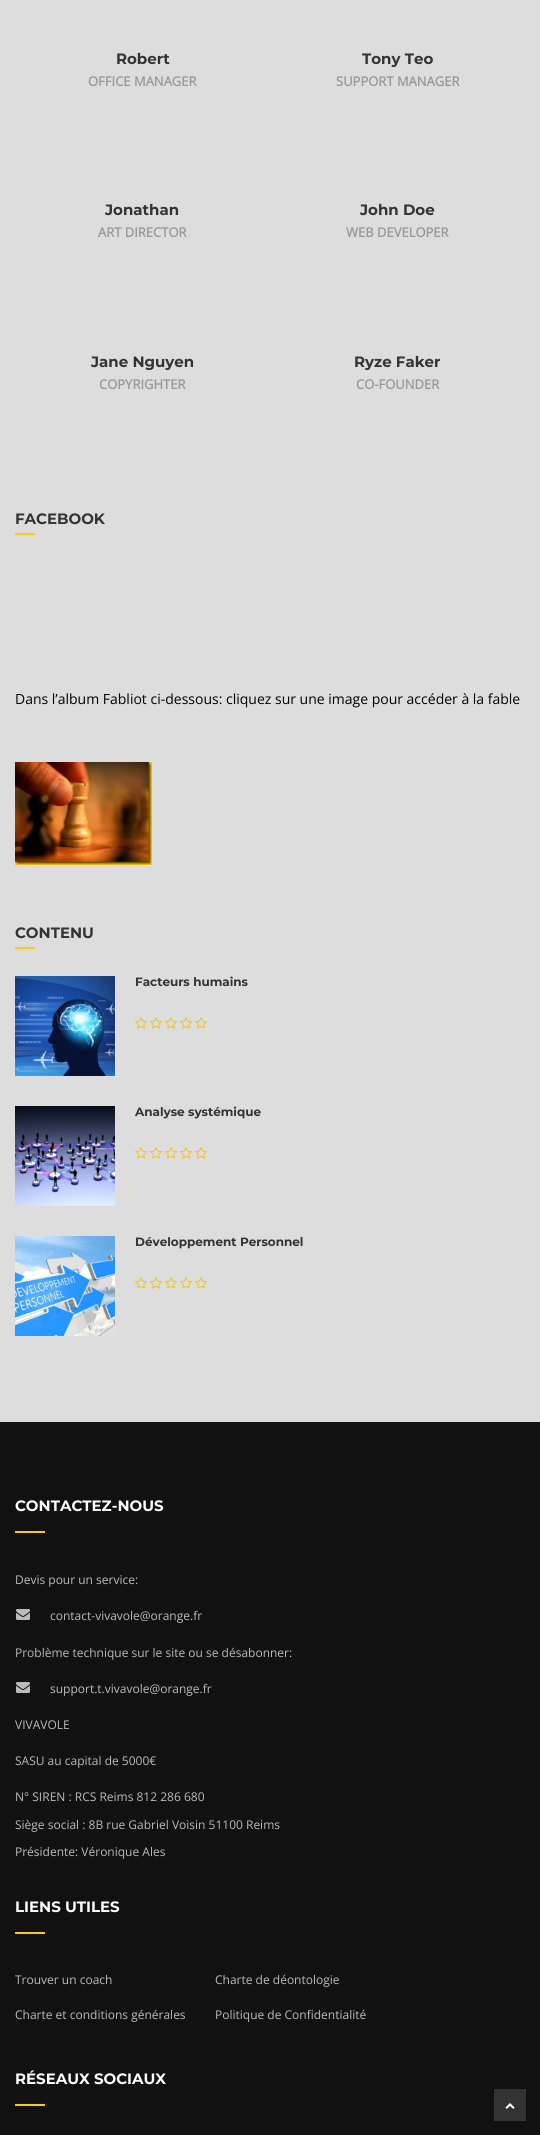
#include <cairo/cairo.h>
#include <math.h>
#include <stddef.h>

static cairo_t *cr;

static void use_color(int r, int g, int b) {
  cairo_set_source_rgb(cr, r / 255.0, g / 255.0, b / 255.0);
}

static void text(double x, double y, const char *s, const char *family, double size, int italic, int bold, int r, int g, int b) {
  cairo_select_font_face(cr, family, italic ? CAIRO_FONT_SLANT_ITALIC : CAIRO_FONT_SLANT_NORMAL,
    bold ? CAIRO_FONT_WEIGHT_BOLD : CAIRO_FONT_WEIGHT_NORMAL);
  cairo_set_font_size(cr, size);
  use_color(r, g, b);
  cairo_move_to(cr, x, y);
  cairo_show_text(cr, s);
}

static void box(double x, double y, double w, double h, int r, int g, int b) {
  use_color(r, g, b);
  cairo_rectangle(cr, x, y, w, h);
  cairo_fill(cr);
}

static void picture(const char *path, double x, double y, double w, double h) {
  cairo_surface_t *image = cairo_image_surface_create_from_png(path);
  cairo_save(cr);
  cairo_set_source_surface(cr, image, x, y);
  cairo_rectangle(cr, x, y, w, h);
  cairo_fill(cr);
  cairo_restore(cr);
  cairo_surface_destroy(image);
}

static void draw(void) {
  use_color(221, 221, 221);
  cairo_paint(cr);
  box(15, 533, 20, 2, 249, 202, 23);
  picture("img_01.png", 15, 762, 137, 103);
  box(15, 947, 20, 2, 249, 202, 23);
  picture("img_02.png", 15, 976, 100, 100);
  picture("img_03.png", 135, 1017, 12, 12);
  picture("img_03.png", 150, 1017, 12, 12);
  picture("img_03.png", 165, 1017, 12, 12);
  picture("img_03.png", 180, 1017, 12, 12);
  picture("img_03.png", 195, 1017, 12, 12);
  picture("img_04.png", 15, 1106, 100, 100);
  picture("img_03.png", 135, 1147, 12, 12);
  picture("img_03.png", 150, 1147, 12, 12);
  picture("img_03.png", 165, 1147, 12, 12);
  picture("img_03.png", 180, 1147, 12, 12);
  picture("img_03.png", 195, 1147, 12, 12);
  picture("img_05.png", 15, 1236, 100, 100);
  picture("img_03.png", 135, 1277, 12, 12);
  picture("img_03.png", 150, 1277, 12, 12);
  picture("img_03.png", 165, 1277, 12, 12);
  picture("img_03.png", 180, 1277, 12, 12);
  picture("img_03.png", 195, 1277, 12, 12);
  box(0, 1422, 540, 713, 17, 17, 17);
  box(15, 1531, 30, 2, 249, 202, 23);
  picture("img_06.png", 16, 1609, 14, 11);
  picture("img_06.png", 16, 1682, 14, 11);
  box(15, 1932, 30, 2, 249, 202, 23);
  box(15, 2104, 30, 2, 249, 202, 23);
  box(494, 2089, 32, 32, 51, 51, 51);
  picture("img_07.png", 505, 2103, 10, 6);
  text(116, 64, "Robert", "Montserrat", 15, 0, 1, 51, 51, 51);
  text(88, 86, "OFFICE MANAGER", "Open Sans", 13, 0, 1, 153, 153, 153);
  text(362, 64, "Tony Teo", "Montserrat", 15, 0, 1, 51, 51, 51);
  text(336, 86, "SUPPORT MANAGER", "Open Sans", 13, 0, 1, 153, 153, 153);
  text(105, 215, "Jonathan", "Montserrat", 15, 0, 1, 51, 51, 51);
  text(98, 237, "ART DIRECTOR", "Open Sans", 13, 0, 1, 153, 153, 153);
  text(360, 215, "John Doe", "Montserrat", 15, 0, 1, 51, 51, 51);
  text(346, 237, "WEB DEVELOPER", "Open Sans", 13, 0, 1, 153, 153, 153);
  text(91, 367, "Jane Nguyen", "Montserrat", 15, 0, 1, 51, 51, 51);
  text(99, 389, "COPYRIGHTER", "Open Sans", 13, 0, 1, 153, 153, 153);
  text(354, 367, "Ryze Faker", "Montserrat", 15, 0, 1, 51, 51, 51);
  text(356, 389, "CO-FOUNDER", "Open Sans", 13, 0, 1, 153, 153, 153);
  text(15, 524, "FACEBOOK", "Montserrat", 15, 0, 1, 51, 51, 51);
  text(15, 704, "Dans l’album Fabliot ci-dessous: cliquez sur une image pour accéder à la fable", "Open Sans", 14, 0, 0, 0, 0, 0);
  text(15, 938, "CONTENU", "Montserrat", 15, 0, 1, 51, 51, 51);
  text(135, 986, "Facteurs humains", "Montserrat", 12, 0, 1, 51, 51, 51);
  text(135, 1116, "Analyse systémique", "Montserrat", 12, 0, 1, 51, 51, 51);
  text(135, 1246, "Développement Personnel", "Montserrat", 12, 0, 1, 51, 51, 51);
  text(15, 1511, "CONTACTEZ-NOUS", "Montserrat", 15, 0, 1, 255, 255, 255);
  text(15, 1584, "Devis pour un service:", "Open Sans", 12, 0, 0, 187, 187, 187);
  text(50, 1620, "contact-vivavole@orange.fr", "Open Sans", 12, 0, 0, 187, 187, 187);
  text(15, 1657, "Problème technique sur le site ou se désabonner:", "Open Sans", 12, 0, 0, 187, 187, 187);
  text(50, 1693, "support.t.vivavole@orange.fr", "Open Sans", 12, 0, 0, 187, 187, 187);
  text(15, 1729, "VIVAVOLE", "Open Sans", 12, 0, 0, 187, 187, 187);
  text(15, 1765, "SASU au capital de 5000€", "Open Sans", 12, 0, 0, 187, 187, 187);
  text(15, 1801, "N° SIREN : RCS Reims 812 286 680", "Open Sans", 12, 0, 0, 187, 187, 187);
  text(15, 1829, "Siège social : 8B rue Gabriel Voisin 51100 Reims", "Open Sans", 12, 0, 0, 187, 187, 187);
  text(15, 1856, "Présidente: Véronique Ales", "Open Sans", 12, 0, 0, 187, 187, 187);
  text(15, 1912, "LIENS UTILES", "Montserrat", 15, 0, 1, 255, 255, 255);
  text(15, 1984, "Trouver un coach", "Open Sans", 12, 0, 0, 187, 187, 187);
  text(215, 1984, "Charte de déontologie", "Open Sans", 12, 0, 0, 187, 187, 187);
  text(15, 2019, "Charte et conditions générales", "Open Sans", 12, 0, 0, 187, 187, 187);
  text(215, 2019, "Politique de Confidentialité", "Open Sans", 12, 0, 0, 187, 187, 187);
  text(15, 2084, "RÉSEAUX SOCIAUX", "Montserrat", 15, 0, 1, 255, 255, 255);
}

int main(void) {
  cairo_surface_t *surface = cairo_image_surface_create(CAIRO_FORMAT_RGB24, 540, 2135);
  cr = cairo_create(surface);
  cairo_font_options_t *options = cairo_font_options_create();
  cairo_font_options_set_hint_metrics(options, CAIRO_HINT_METRICS_OFF);
  cairo_font_options_set_hint_style(options, CAIRO_HINT_STYLE_NONE);
  cairo_set_font_options(cr, options);
  cairo_set_miter_limit(cr, 4);
  draw();
  cairo_surface_write_to_png(surface, "out.png");
  cairo_font_options_destroy(options);
  cairo_destroy(cr);
  cairo_surface_destroy(surface);
  return 0;
}
